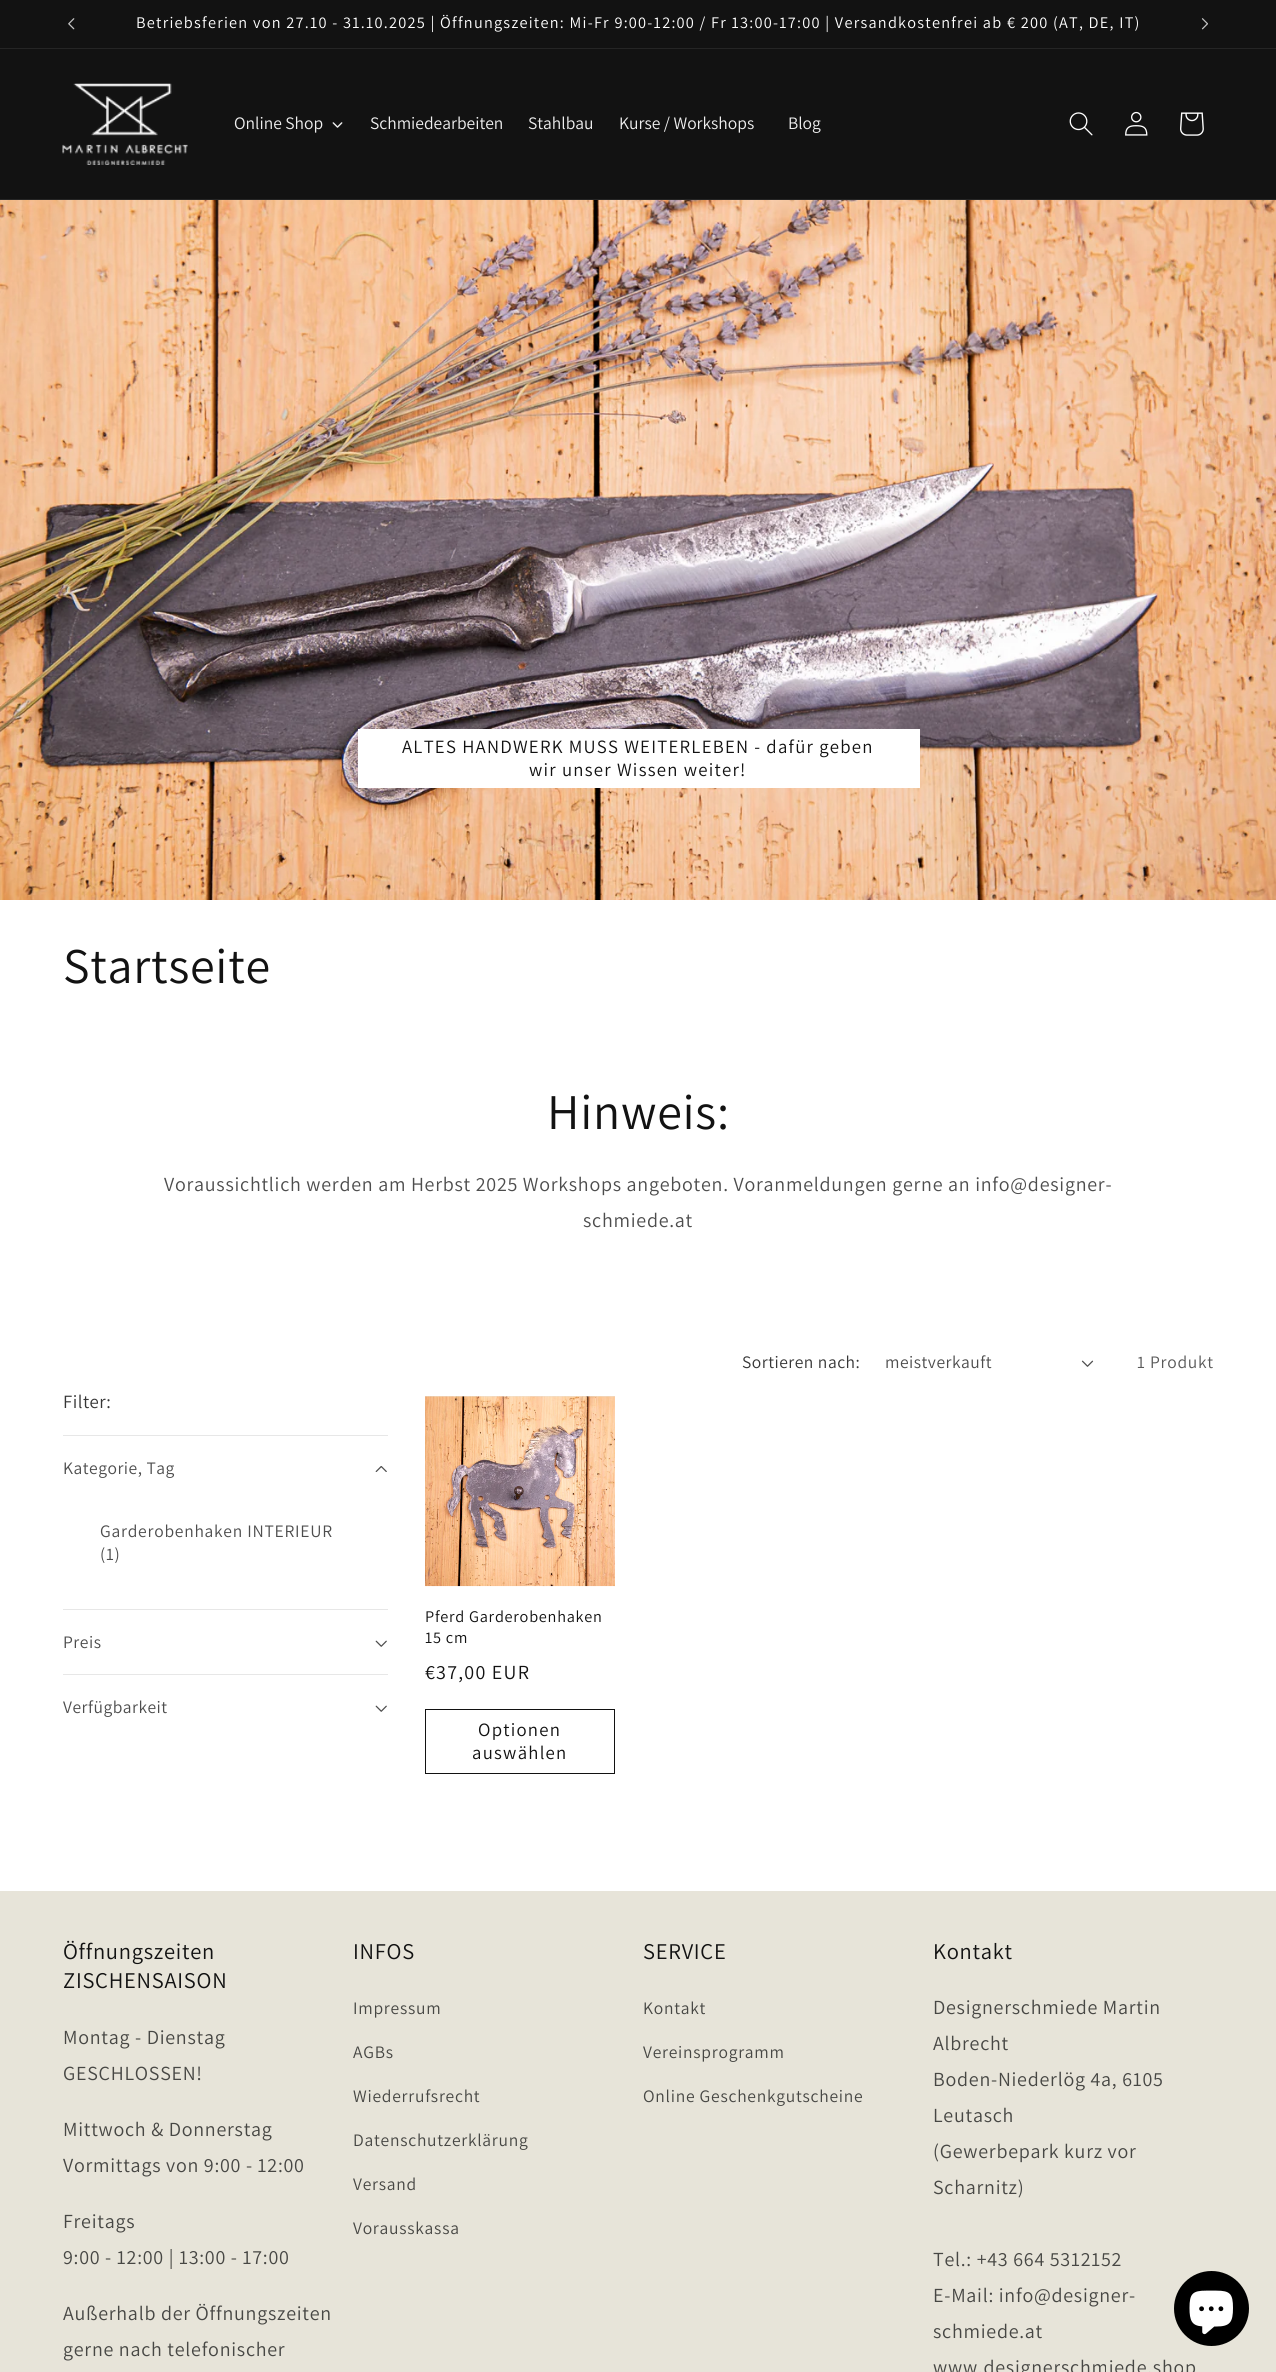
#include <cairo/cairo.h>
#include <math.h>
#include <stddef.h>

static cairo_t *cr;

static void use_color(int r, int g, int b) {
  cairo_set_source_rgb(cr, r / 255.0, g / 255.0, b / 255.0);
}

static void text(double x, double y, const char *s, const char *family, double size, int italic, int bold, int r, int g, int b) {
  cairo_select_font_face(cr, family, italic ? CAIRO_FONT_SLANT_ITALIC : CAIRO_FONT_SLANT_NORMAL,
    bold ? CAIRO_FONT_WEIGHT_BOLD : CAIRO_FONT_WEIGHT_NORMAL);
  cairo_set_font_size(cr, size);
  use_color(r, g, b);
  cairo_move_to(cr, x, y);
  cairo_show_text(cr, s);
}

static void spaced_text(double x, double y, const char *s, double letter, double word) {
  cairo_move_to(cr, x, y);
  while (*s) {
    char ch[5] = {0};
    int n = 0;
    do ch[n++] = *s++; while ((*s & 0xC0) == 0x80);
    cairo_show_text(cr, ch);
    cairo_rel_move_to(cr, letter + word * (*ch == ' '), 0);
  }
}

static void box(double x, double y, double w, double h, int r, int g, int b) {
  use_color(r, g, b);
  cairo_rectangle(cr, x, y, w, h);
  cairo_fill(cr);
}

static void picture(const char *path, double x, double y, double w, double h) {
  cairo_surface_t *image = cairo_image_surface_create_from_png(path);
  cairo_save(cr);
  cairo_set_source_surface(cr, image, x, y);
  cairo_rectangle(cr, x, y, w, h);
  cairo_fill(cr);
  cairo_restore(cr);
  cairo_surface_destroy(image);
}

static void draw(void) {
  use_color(255, 255, 255);
  cairo_paint(cr);
  box(0, 0, 1276, 48, 18, 18, 18);
  box(0, 48, 1276, 1, 37, 37, 37);
  picture("img_01.png", 68, 18, 7, 12);
  picture("img_02.png", 1201, 18, 7, 12);
  box(0, 49, 1276, 150, 18, 18, 18);
  box(0, 199, 1276, 1, 37, 37, 37);
  picture("img_03.png", 62, 83, 126, 82);
  picture("img_04.png", 332, 122, 11, 6);
  picture("img_05.png", 1069, 112, 24, 24);
  picture("img_06.png", 1125, 111, 23, 25);
  picture("img_07.png", 1180, 112, 24, 24);
  picture("img_08.png", 0, 200, 1276, 700);
  box(358, 729, 562, 59, 255, 255, 255);
  picture("img_09.png", 1081, 1360, 13, 7);
  box(63, 1435, 325, 1, 231, 231, 231);
  picture("img_10.png", 375, 1466, 12, 6);
  box(63, 1609, 325, 1, 231, 231, 231);
  picture("img_11.png", 375, 1640, 12, 7);
  box(63, 1674, 325, 1, 231, 231, 231);
  picture("img_11.png", 375, 1705, 12, 7);
  box(425, 1396, 190, 1, 231, 228, 217);
  picture("img_12.png", 425, 1396, 190, 191);
  cairo_rectangle(cr, 425.5, 1709.5, 189, 64);
  use_color(18, 18, 18);
  cairo_set_line_width(cr, 1);
  cairo_stroke(cr);
  box(0, 1891, 1276, 481, 231, 228, 217);
  use_color(0, 0, 0);
  cairo_arc(cr, 1211.5, 2308.5, 37.5, 0, 2 * M_PI);
  cairo_fill(cr);
  picture("img_13.png", 1189, 2290, 44, 45);
  cairo_select_font_face(cr, "Assistant", CAIRO_FONT_SLANT_NORMAL, CAIRO_FONT_WEIGHT_NORMAL);
  cairo_set_font_size(cr, 16.25);
  use_color(255, 255, 255);
  spaced_text(136, 28, "Betriebsferien von 27.10 - 31.10.2025 | Öffnungszeiten: Mi-Fr 9:00-12:00 / Fr 13:00-17:00 | Versandkostenfrei ab € 200 (AT, DE, IT)", 1.25, 0);
  text(234, 129, "Online Shop", "Assistant", 17.5, 0, 0, 239, 239, 239);
  text(370, 129, "Schmiedearbeiten", "Assistant", 17.5, 0, 0, 239, 239, 239);
  text(528, 129, "Stahlbau", "Assistant", 17.5, 0, 0, 239, 239, 239);
  text(619, 129, "Kurse / Workshops", "Assistant", 17.5, 0, 0, 239, 239, 239);
  text(788, 129, "Blog", "Assistant", 17.5, 0, 0, 239, 239, 239);
  cairo_set_font_size(cr, 18.75);
  use_color(18, 18, 18);
  spaced_text(402, 753, "ALTES HANDWERK MUSS WEITERLEBEN - dafür geben", 1.25, 0);
  spaced_text(529, 776, "wir unser Wissen weiter!", 1.25, 0);
  cairo_set_font_size(cr, 50);
  spaced_text(63, 983, "Startseite", 0.75, 0);
  spaced_text(547, 1129, "Hinweis:", 0.75, 0);
  cairo_set_font_size(cr, 20);
  use_color(77, 77, 77);
  spaced_text(164, 1191, "Voraussichtlich werden am Herbst 2025 Workshops angeboten. Voranmeldungen gerne an info@designer-", 0.75, 0);
  spaced_text(583, 1227, "schmiede.at", 0.75, 0);
  cairo_set_font_size(cr, 17.5);
  use_color(54, 54, 54);
  spaced_text(742, 1368, "Sortieren nach:", 0.5, 0);
  use_color(77, 77, 77);
  spaced_text(885, 1368, "meistverkauft", 0.5, 0);
  use_color(89, 89, 89);
  spaced_text(1137, 1368, "1 Produkt", 0.75, 0);
  cairo_set_font_size(cr, 18.75);
  use_color(54, 54, 54);
  spaced_text(63, 1408, "Filter:", 0.5, 0);
  cairo_set_font_size(cr, 17.5);
  use_color(77, 77, 77);
  spaced_text(63, 1474, "Kategorie, Tag", 0.5, 0);
  spaced_text(100, 1537, "Garderobenhaken INTERIEUR", 0.75, 0);
  spaced_text(100, 1560, "(1)", 0.75, 0);
  spaced_text(63, 1648, "Preis", 0.5, 0);
  spaced_text(63, 1713, "Verfügbarkeit", 0.5, 0);
  cairo_set_font_size(cr, 16.25);
  use_color(18, 18, 18);
  spaced_text(425, 1622, "Pferd Garderobenhaken", 0.75, 0);
  spaced_text(425, 1643, "15 cm", 0.75, 0);
  cairo_set_font_size(cr, 20);
  spaced_text(425, 1679, "€37,00 EUR", 1.25, 0);
  cairo_set_font_size(cr, 18.75);
  spaced_text(478, 1736, "Optionen", 1.25, 0);
  spaced_text(472, 1759, "auswählen", 1.25, 0);
  cairo_set_font_size(cr, 22.5);
  spaced_text(63, 1959, "Öffnungszeiten", 0.75, 0);
  spaced_text(63, 1988, "ZISCHENSAISON", 0.75, 0);
  cairo_set_font_size(cr, 20);
  use_color(71, 71, 68);
  spaced_text(63, 2044, "Montag - Dienstag", 0.75, 0);
  spaced_text(63, 2080, "GESCHLOSSEN!", 0.75, 0);
  spaced_text(63, 2136, "Mittwoch & Donnerstag", 0.75, 0);
  spaced_text(63, 2172, "Vormittags von 9:00 - 12:00", 0.75, 0);
  spaced_text(63, 2228, "Freitags", 0.75, 0);
  spaced_text(63, 2264, "9:00 - 12:00 | 13:00 - 17:00", 0.75, 0);
  spaced_text(63, 2320, "Außerhalb der Öffnungszeiten", 0.75, 0);
  spaced_text(63, 2356, "gerne nach telefonischer", 0.75, 0);
  cairo_set_font_size(cr, 22.5);
  use_color(18, 18, 18);
  spaced_text(353, 1959, "INFOS", 0.75, 0);
  cairo_set_font_size(cr, 17.5);
  use_color(71, 71, 68);
  spaced_text(353, 2014, "Impressum", 0.75, 0);
  spaced_text(353, 2058, "AGBs", 0.75, 0);
  spaced_text(353, 2102, "Wiederrufsrecht", 0.75, 0);
  spaced_text(353, 2146, "Datenschutzerklärung", 0.75, 0);
  spaced_text(353, 2190, "Versand", 0.75, 0);
  spaced_text(353, 2234, "Vorausskassa", 0.75, 0);
  cairo_set_font_size(cr, 22.5);
  use_color(18, 18, 18);
  spaced_text(643, 1959, "SERVICE", 0.75, 0);
  cairo_set_font_size(cr, 17.5);
  use_color(71, 71, 68);
  spaced_text(643, 2014, "Kontakt", 0.75, 0);
  spaced_text(643, 2058, "Vereinsprogramm", 0.75, 0);
  spaced_text(643, 2102, "Online Geschenkgutscheine", 0.75, 0);
  cairo_set_font_size(cr, 22.5);
  use_color(18, 18, 18);
  spaced_text(933, 1959, "Kontakt", 0.75, 0);
  cairo_set_font_size(cr, 20);
  use_color(71, 71, 68);
  spaced_text(933, 2014, "Designerschmiede Martin", 0.75, 0);
  spaced_text(933, 2050, "Albrecht", 0.75, 0);
  spaced_text(933, 2086, "Boden-Niederlög 4a, 6105", 0.75, 0);
  spaced_text(933, 2122, "Leutasch", 0.75, 0);
  spaced_text(933, 2158, "(Gewerbepark kurz vor", 0.75, 0);
  spaced_text(933, 2194, "Scharnitz)", 0.75, 0);
  spaced_text(933, 2266, "Tel.: +43 664 5312152", 0.75, 0);
  spaced_text(933, 2302, "E-Mail: info@designer-", 0.75, 0);
  spaced_text(933, 2338, "schmiede.at", 0.75, 0);
  spaced_text(933, 2374, "www.designerschmiede.shop", 0.75, 0);
}

int main(void) {
  cairo_surface_t *surface = cairo_image_surface_create(CAIRO_FORMAT_RGB24, 1276, 2372);
  cr = cairo_create(surface);
  cairo_font_options_t *options = cairo_font_options_create();
  cairo_font_options_set_hint_metrics(options, CAIRO_HINT_METRICS_OFF);
  cairo_font_options_set_hint_style(options, CAIRO_HINT_STYLE_NONE);
  cairo_set_font_options(cr, options);
  cairo_set_miter_limit(cr, 4);
  draw();
  cairo_surface_write_to_png(surface, "out.png");
  cairo_font_options_destroy(options);
  cairo_destroy(cr);
  cairo_surface_destroy(surface);
  return 0;
}
